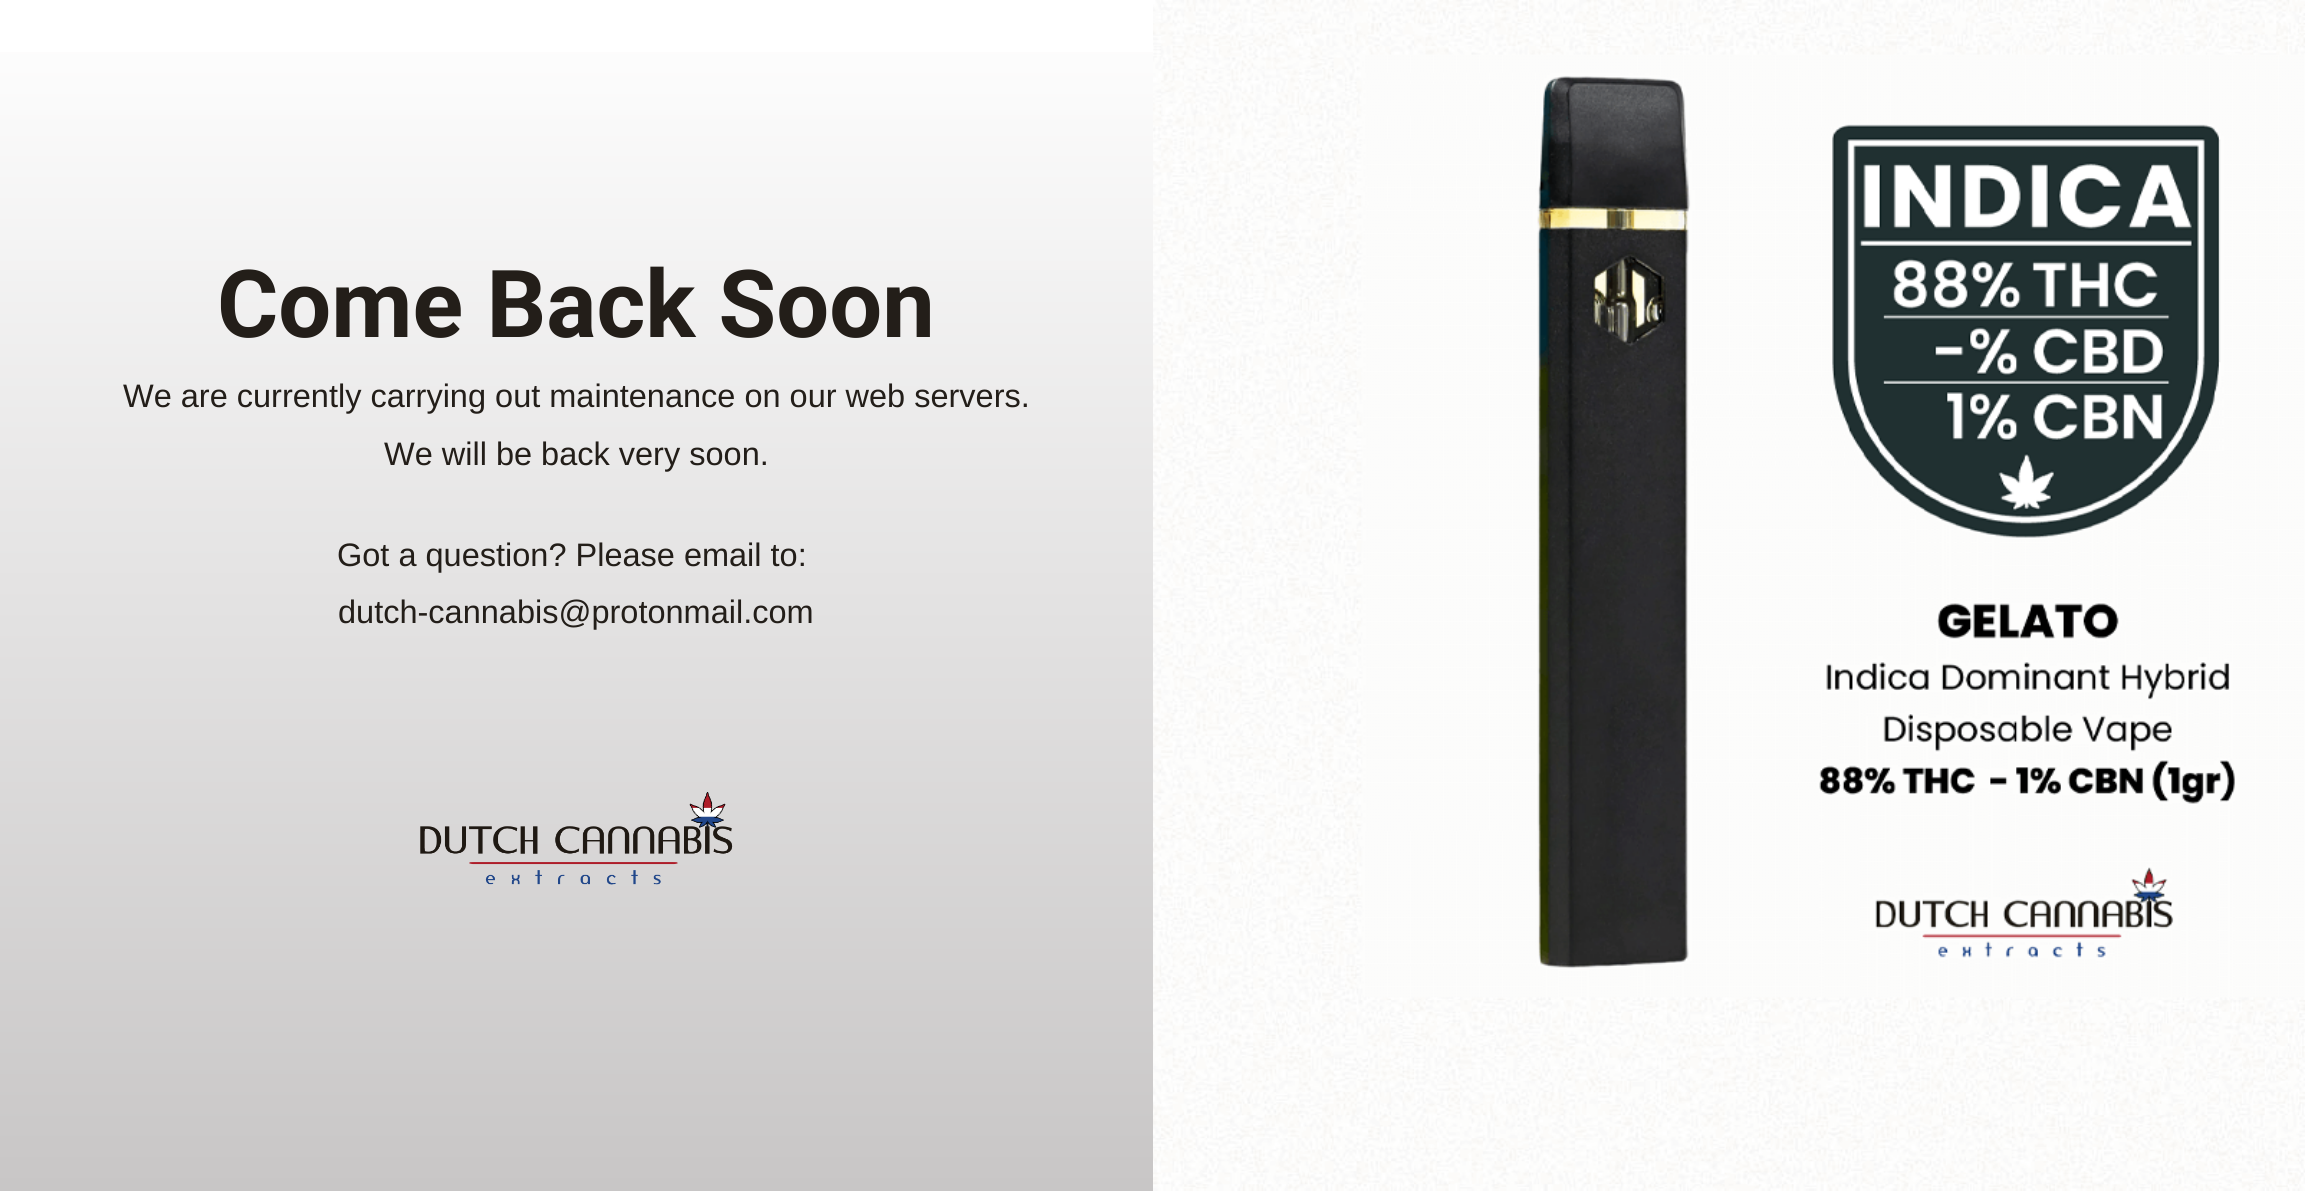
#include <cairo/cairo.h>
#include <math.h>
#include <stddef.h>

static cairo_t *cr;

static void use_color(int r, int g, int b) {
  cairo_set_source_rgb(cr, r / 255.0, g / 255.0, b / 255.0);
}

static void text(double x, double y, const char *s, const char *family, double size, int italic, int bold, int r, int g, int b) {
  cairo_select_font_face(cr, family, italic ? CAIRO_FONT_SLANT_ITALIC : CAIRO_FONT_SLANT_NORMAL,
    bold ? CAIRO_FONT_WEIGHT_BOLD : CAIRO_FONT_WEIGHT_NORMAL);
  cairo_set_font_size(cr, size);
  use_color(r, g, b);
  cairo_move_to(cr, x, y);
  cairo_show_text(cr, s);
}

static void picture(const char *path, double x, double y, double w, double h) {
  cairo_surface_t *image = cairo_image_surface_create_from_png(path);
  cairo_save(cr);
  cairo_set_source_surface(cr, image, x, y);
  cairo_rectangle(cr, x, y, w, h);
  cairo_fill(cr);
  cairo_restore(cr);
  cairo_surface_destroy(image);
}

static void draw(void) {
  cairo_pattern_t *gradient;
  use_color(255, 255, 255);
  cairo_paint(cr);
  picture("img_01.png", 1153, 0, 1152, 1191);
  gradient = cairo_pattern_create_linear(576, 0, 576, 1191);
  cairo_pattern_add_color_stop_rgba(gradient, 0, 1, 1, 1, 1);
  cairo_pattern_add_color_stop_rgba(gradient, 1, 0.784, 0.776, 0.776, 1);
  cairo_set_source(cr, gradient);
  cairo_pattern_destroy(gradient);
  cairo_rectangle(cr, 0, 52, 1153, 1139);
  cairo_fill(cr);
  picture("img_02.png", 420, 792, 313, 93);
  text(217, 337, "Come Back Soon", "Roboto", 93.75, 0, 1, 35, 30, 25);
  text(123, 407, "We are currently carrying out maintenance on our web servers.", "Liberation Sans", 32.5, 0, 0, 35, 30, 25);
  text(384, 465, "We will be back very soon.", "Liberation Sans", 32.5, 0, 0, 35, 30, 25);
  text(337, 566, "Got a question? Please email to:", "Liberation Sans", 32.5, 0, 0, 35, 30, 25);
  text(338, 623, "dutch-cannabis@protonmail.com", "Liberation Sans", 32.5, 0, 0, 35, 30, 25);
}

int main(void) {
  cairo_surface_t *surface = cairo_image_surface_create(CAIRO_FORMAT_RGB24, 2305, 1191);
  cr = cairo_create(surface);
  cairo_font_options_t *options = cairo_font_options_create();
  cairo_font_options_set_hint_metrics(options, CAIRO_HINT_METRICS_OFF);
  cairo_font_options_set_hint_style(options, CAIRO_HINT_STYLE_NONE);
  cairo_set_font_options(cr, options);
  cairo_set_miter_limit(cr, 4);
  draw();
  cairo_surface_write_to_png(surface, "out.png");
  cairo_font_options_destroy(options);
  cairo_destroy(cr);
  cairo_surface_destroy(surface);
  return 0;
}
